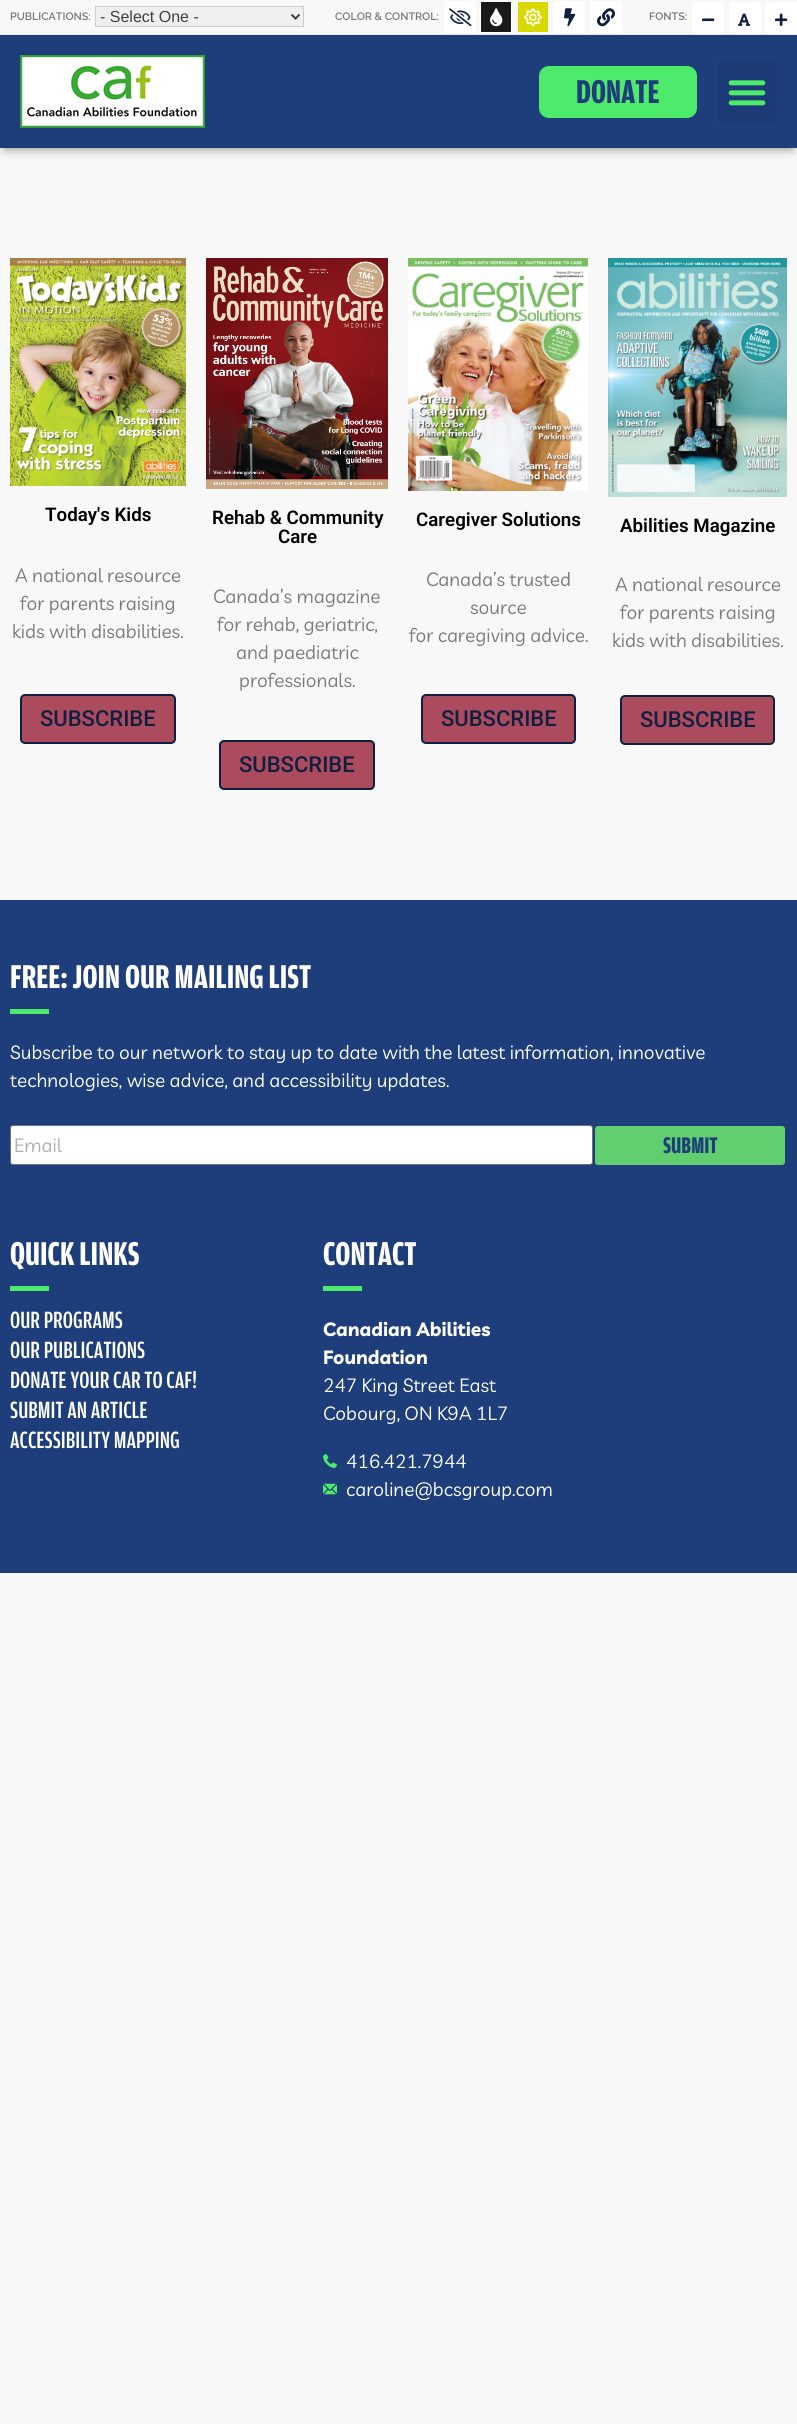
#include <cairo/cairo.h>
#include <math.h>
#include <stddef.h>

static cairo_t *cr;

static void use_color(int r, int g, int b) {
  cairo_set_source_rgb(cr, r / 255.0, g / 255.0, b / 255.0);
}

static void text(double x, double y, const char *s, const char *family, double size, int italic, int bold, int r, int g, int b) {
  cairo_select_font_face(cr, family, italic ? CAIRO_FONT_SLANT_ITALIC : CAIRO_FONT_SLANT_NORMAL,
    bold ? CAIRO_FONT_WEIGHT_BOLD : CAIRO_FONT_WEIGHT_NORMAL);
  cairo_set_font_size(cr, size);
  use_color(r, g, b);
  cairo_move_to(cr, x, y);
  cairo_show_text(cr, s);
}

static void box(double x, double y, double w, double h, int r, int g, int b) {
  use_color(r, g, b);
  cairo_rectangle(cr, x, y, w, h);
  cairo_fill(cr);
}

static void round_rect(double x, double y, double w, double h, double r) {
  cairo_new_sub_path(cr);
  cairo_arc(cr, x + w - r, y + h - r, r, 0, M_PI / 2);
  cairo_arc(cr, x + r, y + h - r, r, M_PI / 2, M_PI);
  cairo_arc(cr, x + r, y + r, r, M_PI, 1.5 * M_PI);
  cairo_arc(cr, x + w - r, y + r, r, 1.5 * M_PI, 2 * M_PI);
  cairo_close_path(cr);
}

static void shadow(double x, double y, double w, double h, double r, double blur, double alpha) {
  cairo_push_group_with_content(cr, CAIRO_CONTENT_ALPHA);
  cairo_set_operator(cr, CAIRO_OPERATOR_SOURCE);
  for (int i = 15; i >= -15 && fmin(w, h) + blur * i / 3 > 0; i -= 2) {
    double e = blur * i / 6;
    cairo_set_source_rgba(cr, 0, 0, 0, alpha * erfc((i - 1) / 8.5) / 2);
    round_rect(x - e, y - e, w + 2 * e, h + 2 * e, fmax(0, fmin(r + e + blur * .6, fmin(w, h) / 2 + e)));
    cairo_fill(cr);
  }
  cairo_pattern_t *soft = cairo_pop_group(cr);
  cairo_mask(cr, soft);
  cairo_pattern_destroy(soft);
}

static void picture(const char *path, double x, double y, double w, double h) {
  cairo_surface_t *image = cairo_image_surface_create_from_png(path);
  cairo_save(cr);
  cairo_set_source_surface(cr, image, x, y);
  cairo_rectangle(cr, x, y, w, h);
  cairo_fill(cr);
  cairo_restore(cr);
  cairo_surface_destroy(image);
}

static void draw(void) {
  use_color(249, 248, 248);
  cairo_paint(cr);
  box(0, 34, 797, 1, 234, 234, 234);
  use_color(239, 239, 239);
  cairo_rectangle(cr, 95.5, 6.5, 208, 20);
  cairo_fill_preserve(cr);
  use_color(204, 204, 204);
  cairo_set_line_width(cr, 1);
  cairo_stroke(cr);
  cairo_new_path(cr);
  cairo_move_to(cr, 291.5, 14.5);
  cairo_line_to(cr, 295.5, 18.5);
  cairo_line_to(cr, 299.5, 14.5);
  use_color(64, 64, 64);
  cairo_set_line_width(cr, 2);
  cairo_stroke(cr);
  box(444, 1, 32, 32, 255, 255, 255);
  picture("img_01.png", 449, 8, 23, 19);
  use_color(25, 25, 25);
  cairo_rectangle(cr, 480.5, 1.5, 31, 31);
  cairo_fill_preserve(cr);
  use_color(255, 255, 255);
  cairo_set_line_width(cr, 1);
  cairo_stroke(cr);
  picture("img_02.png", 490, 8, 13, 19);
  use_color(217, 217, 0);
  cairo_rectangle(cr, 517.5, 1.5, 31, 31);
  cairo_fill_preserve(cr);
  use_color(255, 255, 255);
  cairo_stroke(cr);
  picture("img_03.png", 524, 8, 18, 19);
  box(553, 1, 32, 32, 255, 255, 255);
  picture("img_04.png", 564, 8, 12, 19);
  box(590, 1, 32, 32, 255, 255, 255);
  picture("img_05.png", 597, 8, 18, 19);
  box(692, 2, 32, 32, 255, 255, 255);
  picture("img_06.png", 702, 18, 13, 4);
  box(729, 2, 32, 32, 255, 255, 255);
  picture("img_07.png", 738, 13, 13, 13);
  box(765, 2, 32, 32, 255, 255, 255);
  picture("img_08.png", 775, 13, 13, 13);
  use_color(0, 0, 0);
  shadow(5, 45, 787, 103, 0, 5.5, 0.5);
  box(0, 35, 797, 113, 29, 61, 123);
  picture("img_09.png", 20, 55, 185, 73);
  use_color(78, 234, 108);
  round_rect(540, 67, 156, 50, 9);
  cairo_fill_preserve(cr);
  cairo_set_line_width(cr, 2);
  cairo_stroke(cr);
  use_color(28, 58, 117);
  round_rect(717, 62, 60, 60, 3);
  cairo_fill(cr);
  picture("img_10.png", 728, 80, 38, 26);
  picture("img_11.png", 10, 258, 176, 228);
  use_color(172, 75, 94);
  round_rect(21, 695, 154, 48, 4);
  cairo_fill_preserve(cr);
  use_color(15, 31, 64);
  cairo_stroke(cr);
  picture("img_12.png", 206, 258, 182, 231);
  use_color(172, 75, 94);
  round_rect(220, 741, 154, 48, 4);
  cairo_fill_preserve(cr);
  use_color(15, 31, 64);
  cairo_stroke(cr);
  picture("img_13.png", 408, 258, 180, 233);
  use_color(172, 75, 94);
  round_rect(422, 695, 153, 48, 4);
  cairo_fill_preserve(cr);
  use_color(15, 31, 64);
  cairo_stroke(cr);
  picture("img_14.png", 608, 258, 179, 239);
  use_color(172, 75, 94);
  round_rect(621, 696, 153, 48, 4);
  cairo_fill_preserve(cr);
  use_color(15, 31, 64);
  cairo_stroke(cr);
  box(0, 900, 797, 673, 29, 61, 123);
  box(10, 1009, 39, 5, 78, 234, 108);
  use_color(255, 255, 255);
  round_rect(10.5, 1125.5, 582, 39, 2.5);
  cairo_fill_preserve(cr);
  use_color(105, 114, 125);
  cairo_set_line_width(cr, 1);
  cairo_stroke(cr);
  use_color(97, 206, 112);
  round_rect(594, 1125, 192, 41, 4);
  cairo_fill_preserve(cr);
  use_color(29, 61, 123);
  cairo_set_line_width(cr, 2);
  cairo_stroke(cr);
  box(10, 1286, 39, 5, 78, 234, 108);
  box(323, 1286, 39, 5, 78, 234, 108);
  picture("img_15.png", 323, 1454, 14, 14);
  picture("img_16.png", 323, 1483, 14, 12);
  text(10, 20, "PUBLICATIONS:", "Raleway SemiBold", 10.75, 0, 0, 122, 122, 122);
  text(100, 22, "- Select One -", "Liberation Sans", 16, 0, 0, 64, 64, 64);
  text(335, 20, "COLOR & CONTROL:", "Raleway SemiBold", 10.75, 0, 0, 122, 122, 122);
  text(649, 20, "FONTS:", "Raleway SemiBold", 10.75, 0, 0, 122, 122, 122);
  text(576, 103, "DONATE", "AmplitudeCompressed", 35, 0, 1, 29, 61, 123);
  text(45, 521, "Today's Kids", "Roboto SemiBold", 18.75, 0, 0, 0, 0, 0);
  text(15, 582, "A national resource", "Livvic", 19, 0, 0, 122, 122, 122);
  text(20, 610, "for parents raising", "Livvic", 19, 0, 0, 122, 122, 122);
  text(12, 638, "kids with disabilities.", "Livvic", 19, 0, 0, 122, 122, 122);
  text(40, 726, "SUBSCRIBE", "Roboto Medium", 22, 0, 0, 15, 31, 64);
  text(212, 524, "Rehab & Community", "Roboto SemiBold", 18.75, 0, 0, 0, 0, 0);
  text(278, 543, "Care", "Roboto SemiBold", 18.75, 0, 0, 0, 0, 0);
  text(213, 603, "Canada’s magazine", "Livvic", 19, 0, 0, 122, 122, 122);
  text(217, 631, "for rehab, geriatric,", "Livvic", 19, 0, 0, 122, 122, 122);
  text(236, 659, "and paediatric", "Livvic", 19, 0, 0, 122, 122, 122);
  text(239, 687, "professionals.", "Livvic", 19, 0, 0, 122, 122, 122);
  text(239, 772, "SUBSCRIBE", "Roboto Medium", 22, 0, 0, 15, 31, 64);
  text(416, 526, "Caregiver Solutions", "Roboto SemiBold", 18.75, 0, 0, 0, 0, 0);
  text(426, 586, "Canada’s trusted", "Livvic", 19, 0, 0, 122, 122, 122);
  text(470, 614, "source", "Livvic", 19, 0, 0, 122, 122, 122);
  text(409, 642, "for caregiving advice.", "Livvic", 19, 0, 0, 122, 122, 122);
  text(441, 726, "SUBSCRIBE", "Roboto Medium", 22, 0, 0, 15, 31, 64);
  text(620, 532, "Abilities Magazine", "Roboto SemiBold", 18.75, 0, 0, 0, 0, 0);
  text(615, 591, "A national resource", "Livvic", 19, 0, 0, 122, 122, 122);
  text(620, 619, "for parents raising", "Livvic", 19, 0, 0, 122, 122, 122);
  text(612, 647, "kids with disabilities.", "Livvic", 19, 0, 0, 122, 122, 122);
  text(640, 727, "SUBSCRIBE", "Roboto Medium", 22, 0, 0, 15, 31, 64);
  text(10, 988, "FREE: JOIN OUR MAILING LIST", "AmplitudeCompressed", 35, 0, 1, 255, 255, 255);
  text(10, 1059, "Subscribe to our network to stay up to date with the latest information, innovative", "Livvic", 19, 0, 0, 255, 255, 255);
  text(10, 1087, "technologies, wise advice, and accessibility updates.", "Livvic", 19, 0, 0, 255, 255, 255);
  text(14, 1152, "Email", "Livvic", 19, 0, 0, 175, 175, 175);
  text(663, 1153, "SUBMIT", "AmplitudeCompressed", 24, 0, 1, 29, 61, 123);
  text(10, 1265, "QUICK LINKS", "AmplitudeCompressed", 35, 0, 1, 255, 255, 255);
  text(10, 1328, "OUR PROGRAMS", "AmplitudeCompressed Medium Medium", 25, 0, 0, 255, 255, 255);
  text(10, 1358, "OUR PUBLICATIONS", "AmplitudeCompressed Medium Medium", 25, 0, 0, 255, 255, 255);
  text(10, 1388, "DONATE YOUR CAR TO CAF!", "AmplitudeCompressed Medium Medium", 25, 0, 0, 255, 255, 255);
  text(10, 1418, "SUBMIT AN ARTICLE", "AmplitudeCompressed Medium Medium", 25, 0, 0, 255, 255, 255);
  text(10, 1448, "ACCESSIBILITY MAPPING", "AmplitudeCompressed Medium Medium", 25, 0, 0, 255, 255, 255);
  text(323, 1265, "CONTACT", "AmplitudeCompressed", 35, 0, 1, 255, 255, 255);
  text(323, 1336, "Canadian Abilities", "Livvic", 19, 0, 1, 255, 255, 255);
  text(323, 1364, "Foundation", "Livvic", 19, 0, 1, 255, 255, 255);
  text(323, 1392, "247 King Street East", "Livvic", 19, 0, 0, 255, 255, 255);
  text(323, 1420, "Cobourg, ON K9A 1L7", "Livvic", 19, 0, 0, 255, 255, 255);
  text(346, 1468, "416.421.7944", "Livvic", 19, 0, 0, 255, 255, 255);
  text(346, 1496, "caroline@bcsgroup.com", "Livvic", 19, 0, 0, 255, 255, 255);
}

int main(void) {
  cairo_surface_t *surface = cairo_image_surface_create(CAIRO_FORMAT_RGB24, 797, 2424);
  cr = cairo_create(surface);
  cairo_font_options_t *options = cairo_font_options_create();
  cairo_font_options_set_hint_metrics(options, CAIRO_HINT_METRICS_OFF);
  cairo_font_options_set_hint_style(options, CAIRO_HINT_STYLE_NONE);
  cairo_set_font_options(cr, options);
  cairo_set_miter_limit(cr, 4);
  draw();
  cairo_surface_write_to_png(surface, "out.png");
  cairo_font_options_destroy(options);
  cairo_destroy(cr);
  cairo_surface_destroy(surface);
  return 0;
}
